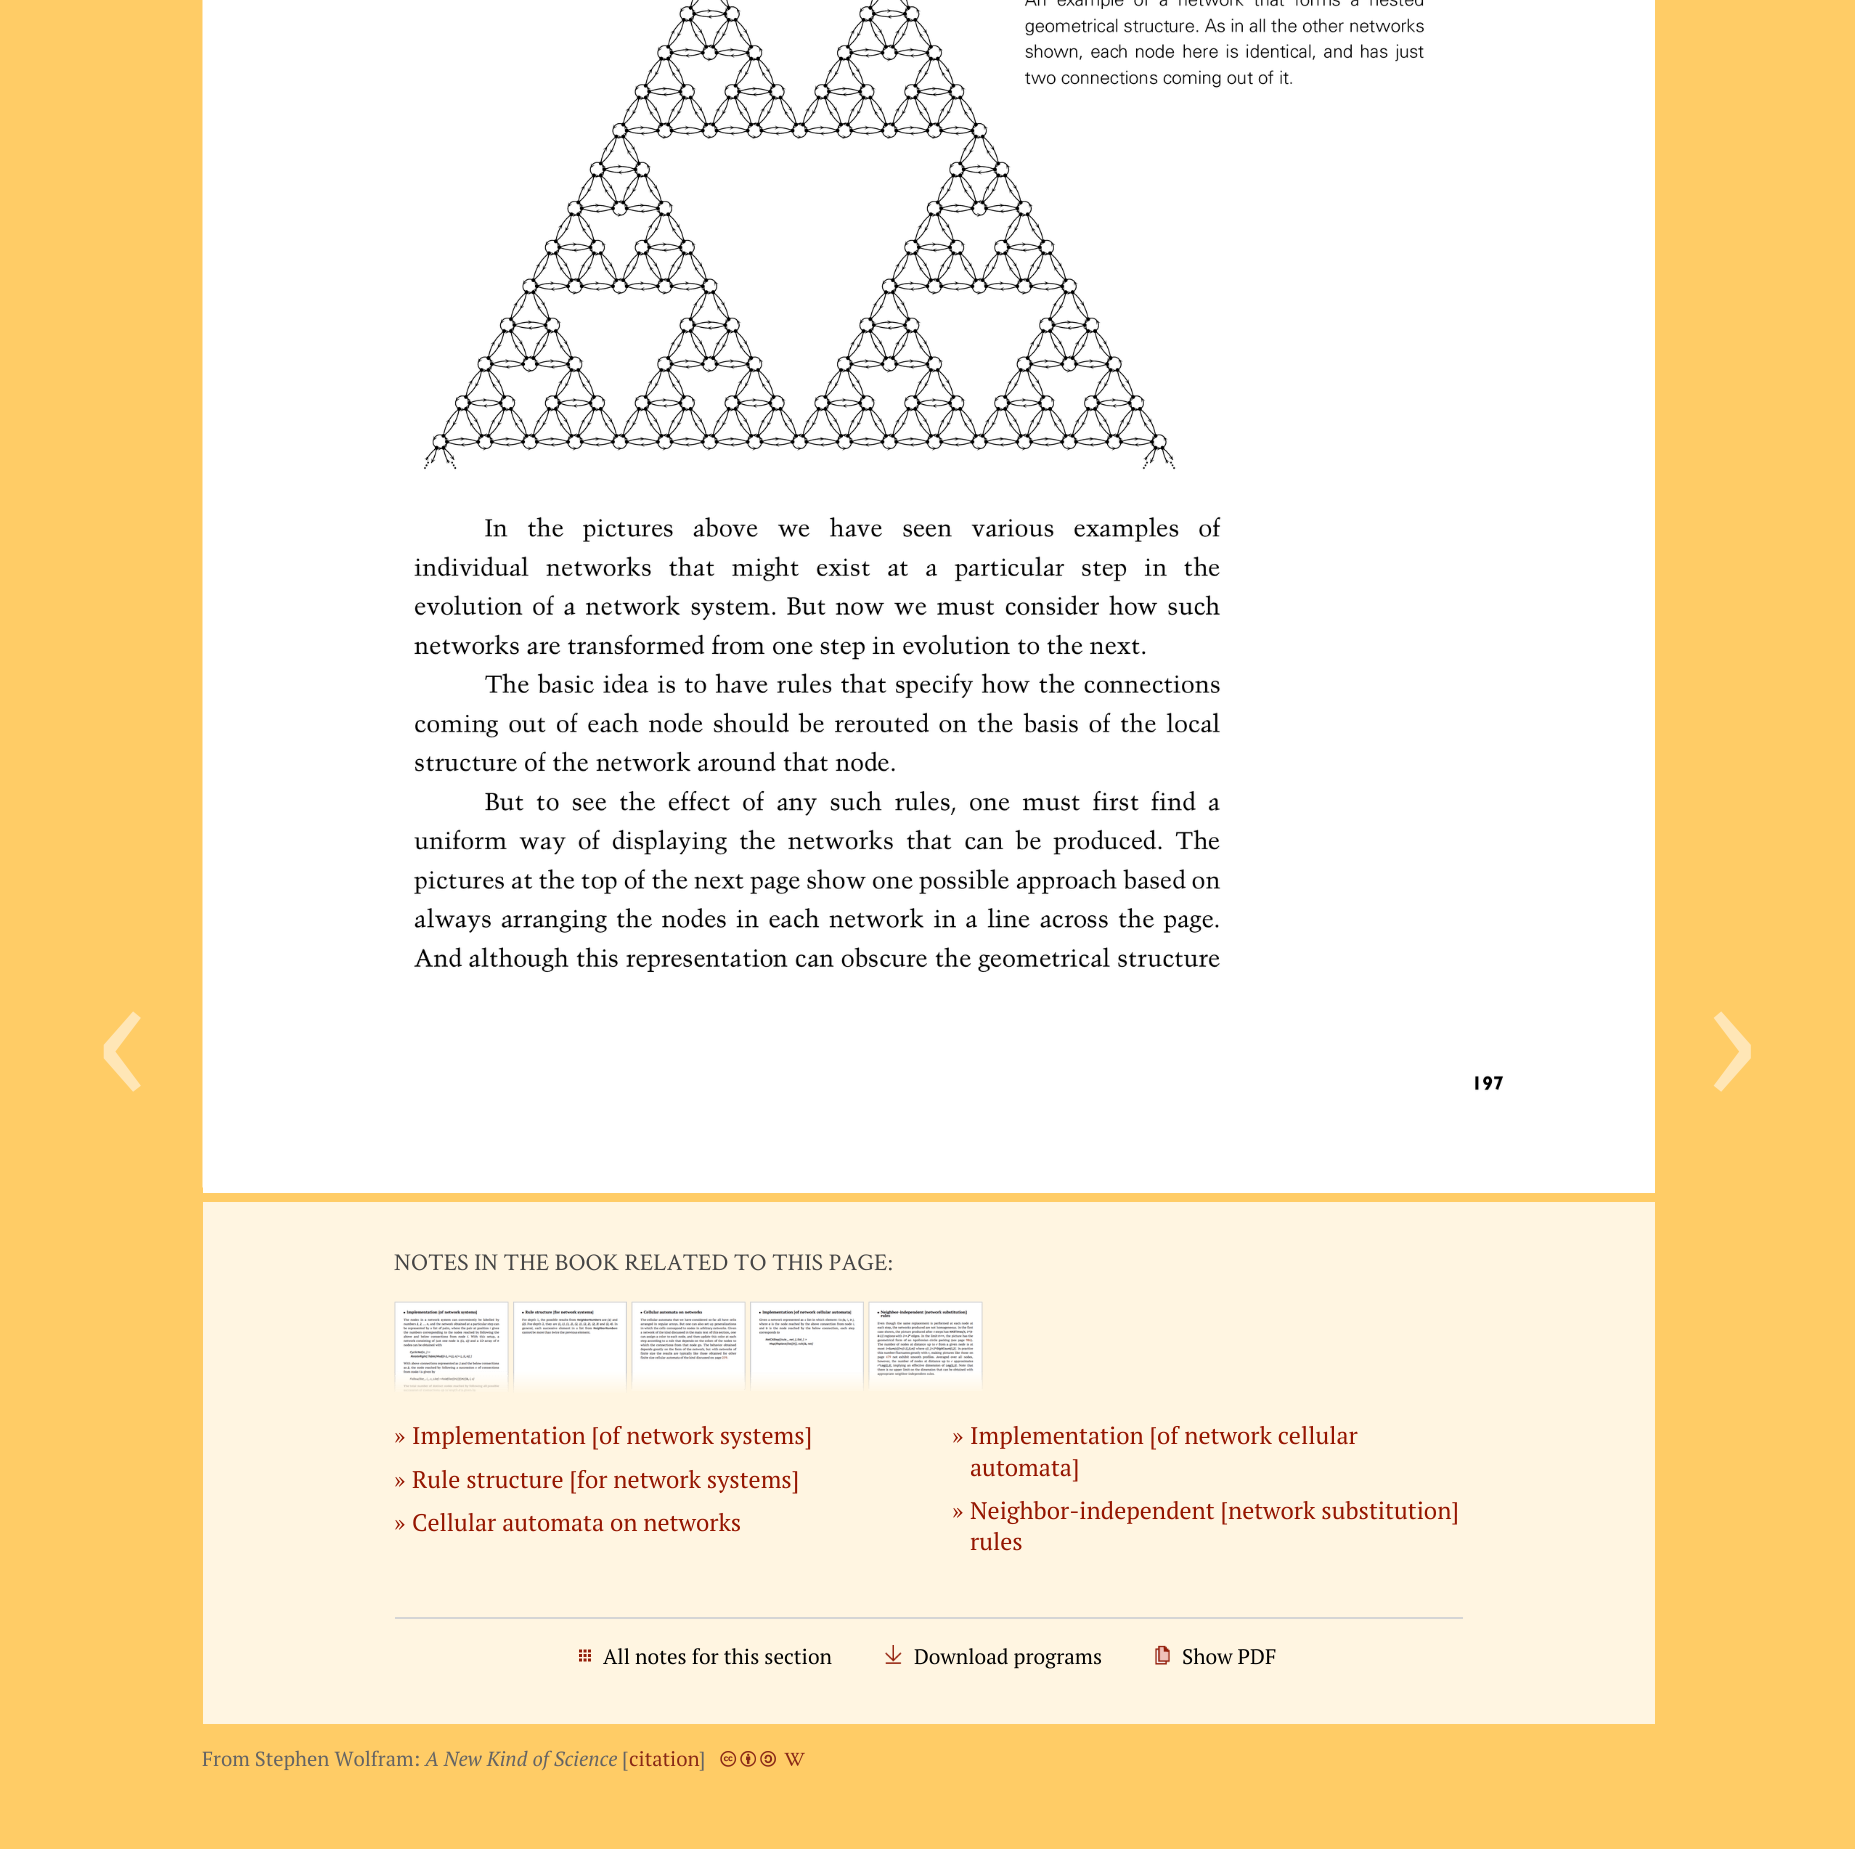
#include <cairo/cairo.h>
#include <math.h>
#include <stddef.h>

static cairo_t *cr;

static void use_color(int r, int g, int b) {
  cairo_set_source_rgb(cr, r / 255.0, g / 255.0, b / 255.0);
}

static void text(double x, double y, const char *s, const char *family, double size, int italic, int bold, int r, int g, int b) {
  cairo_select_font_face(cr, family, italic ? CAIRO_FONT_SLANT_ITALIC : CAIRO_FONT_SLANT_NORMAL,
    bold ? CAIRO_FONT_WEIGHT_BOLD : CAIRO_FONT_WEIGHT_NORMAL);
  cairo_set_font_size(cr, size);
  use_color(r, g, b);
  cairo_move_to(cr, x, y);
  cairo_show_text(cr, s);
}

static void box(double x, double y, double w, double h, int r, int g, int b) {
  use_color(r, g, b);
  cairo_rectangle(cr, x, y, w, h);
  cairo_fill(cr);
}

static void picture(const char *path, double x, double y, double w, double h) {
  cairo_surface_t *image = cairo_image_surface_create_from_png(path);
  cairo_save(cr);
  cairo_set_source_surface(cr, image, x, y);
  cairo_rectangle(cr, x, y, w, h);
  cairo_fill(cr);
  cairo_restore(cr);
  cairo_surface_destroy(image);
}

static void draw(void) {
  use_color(255, 204, 102);
  cairo_paint(cr);
  box(203, 0, 1452, 1193, 255, 255, 255);
  picture("img_01.png", 202, 0, 1302, 1188);
  box(203, 1202, 1452, 522, 255, 245, 225);
  picture("img_02.png", 394, 1301, 115, 91);
  picture("img_03.png", 513, 1301, 114, 92);
  picture("img_04.png", 631, 1301, 115, 90);
  picture("img_05.png", 750, 1301, 114, 90);
  picture("img_06.png", 868, 1301, 115, 90);
  box(395, 1617, 1068, 2, 213, 213, 213);
  picture("img_07.png", 579, 1649, 12, 13);
  picture("img_08.png", 885, 1645, 17, 19);
  picture("img_09.png", 1155, 1645, 15, 20);
  picture("img_10.png", 720, 1751, 56, 16);
  picture("img_11.png", 784, 1752, 21, 14);
  text(94, 1106, "‹", "Source Sans Pro", 216, 0, 0, 255, 230, 182);
  text(1702, 1106, "›", "Source Sans Pro", 216, 0, 0, 255, 230, 182);
  text(394, 1270, "NOTES IN THE BOOK RELATED TO THIS PAGE:", "Crimson Text", 24, 0, 0, 69, 69, 69);
  text(394, 1444, "»", "PT Serif", 24, 0, 0, 149, 21, 0);
  text(412, 1444, "Implementation [of network systems]", "PT Serif", 24, 0, 0, 149, 21, 0);
  text(952, 1444, "»", "PT Serif", 24, 0, 0, 149, 21, 0);
  text(970, 1444, "Implementation [of network cellular", "PT Serif", 24, 0, 0, 149, 21, 0);
  text(970, 1476, "automata]", "PT Serif", 24, 0, 0, 149, 21, 0);
  text(394, 1488, "»", "PT Serif", 24, 0, 0, 149, 21, 0);
  text(412, 1488, "Rule structure [for network systems]", "PT Serif", 24, 0, 0, 149, 21, 0);
  text(394, 1531, "»", "PT Serif", 24, 0, 0, 149, 21, 0);
  text(412, 1531, "Cellular automata on networks", "PT Serif", 24, 0, 0, 149, 21, 0);
  text(952, 1519, "»", "PT Serif", 24, 0, 0, 149, 21, 0);
  text(970, 1519, "Neighbor-independent [network substitution]", "PT Serif", 24, 0, 0, 149, 21, 0);
  text(970, 1550, "rules", "PT Serif", 24, 0, 0, 149, 21, 0);
  text(603, 1664, "All notes for this section", "PT Serif", 21, 0, 0, 2, 2, 2);
  text(914, 1664, "Download programs", "PT Serif", 21, 0, 0, 2, 2, 2);
  text(1182, 1664, "Show PDF", "PT Serif", 21, 0, 0, 2, 2, 2);
  text(202, 1766, "From Stephen Wolfram:", "PT Serif", 20.4, 0, 0, 100, 100, 100);
  text(425, 1766, "A New Kind of Science", "PT Serif", 20.4, 1, 0, 100, 100, 100);
  text(622, 1766, "[", "PT Serif", 20.4, 0, 0, 100, 100, 100);
  text(629, 1766, "citation", "PT Serif", 20.4, 0, 0, 137, 41, 23);
  text(699, 1766, "]", "PT Serif", 20.4, 0, 0, 100, 100, 100);
}

int main(void) {
  cairo_surface_t *surface = cairo_image_surface_create(CAIRO_FORMAT_RGB24, 1855, 1849);
  cr = cairo_create(surface);
  cairo_font_options_t *options = cairo_font_options_create();
  cairo_font_options_set_hint_metrics(options, CAIRO_HINT_METRICS_OFF);
  cairo_font_options_set_hint_style(options, CAIRO_HINT_STYLE_NONE);
  cairo_set_font_options(cr, options);
  cairo_set_miter_limit(cr, 4);
  draw();
  cairo_surface_write_to_png(surface, "out.png");
  cairo_font_options_destroy(options);
  cairo_destroy(cr);
  cairo_surface_destroy(surface);
  return 0;
}
